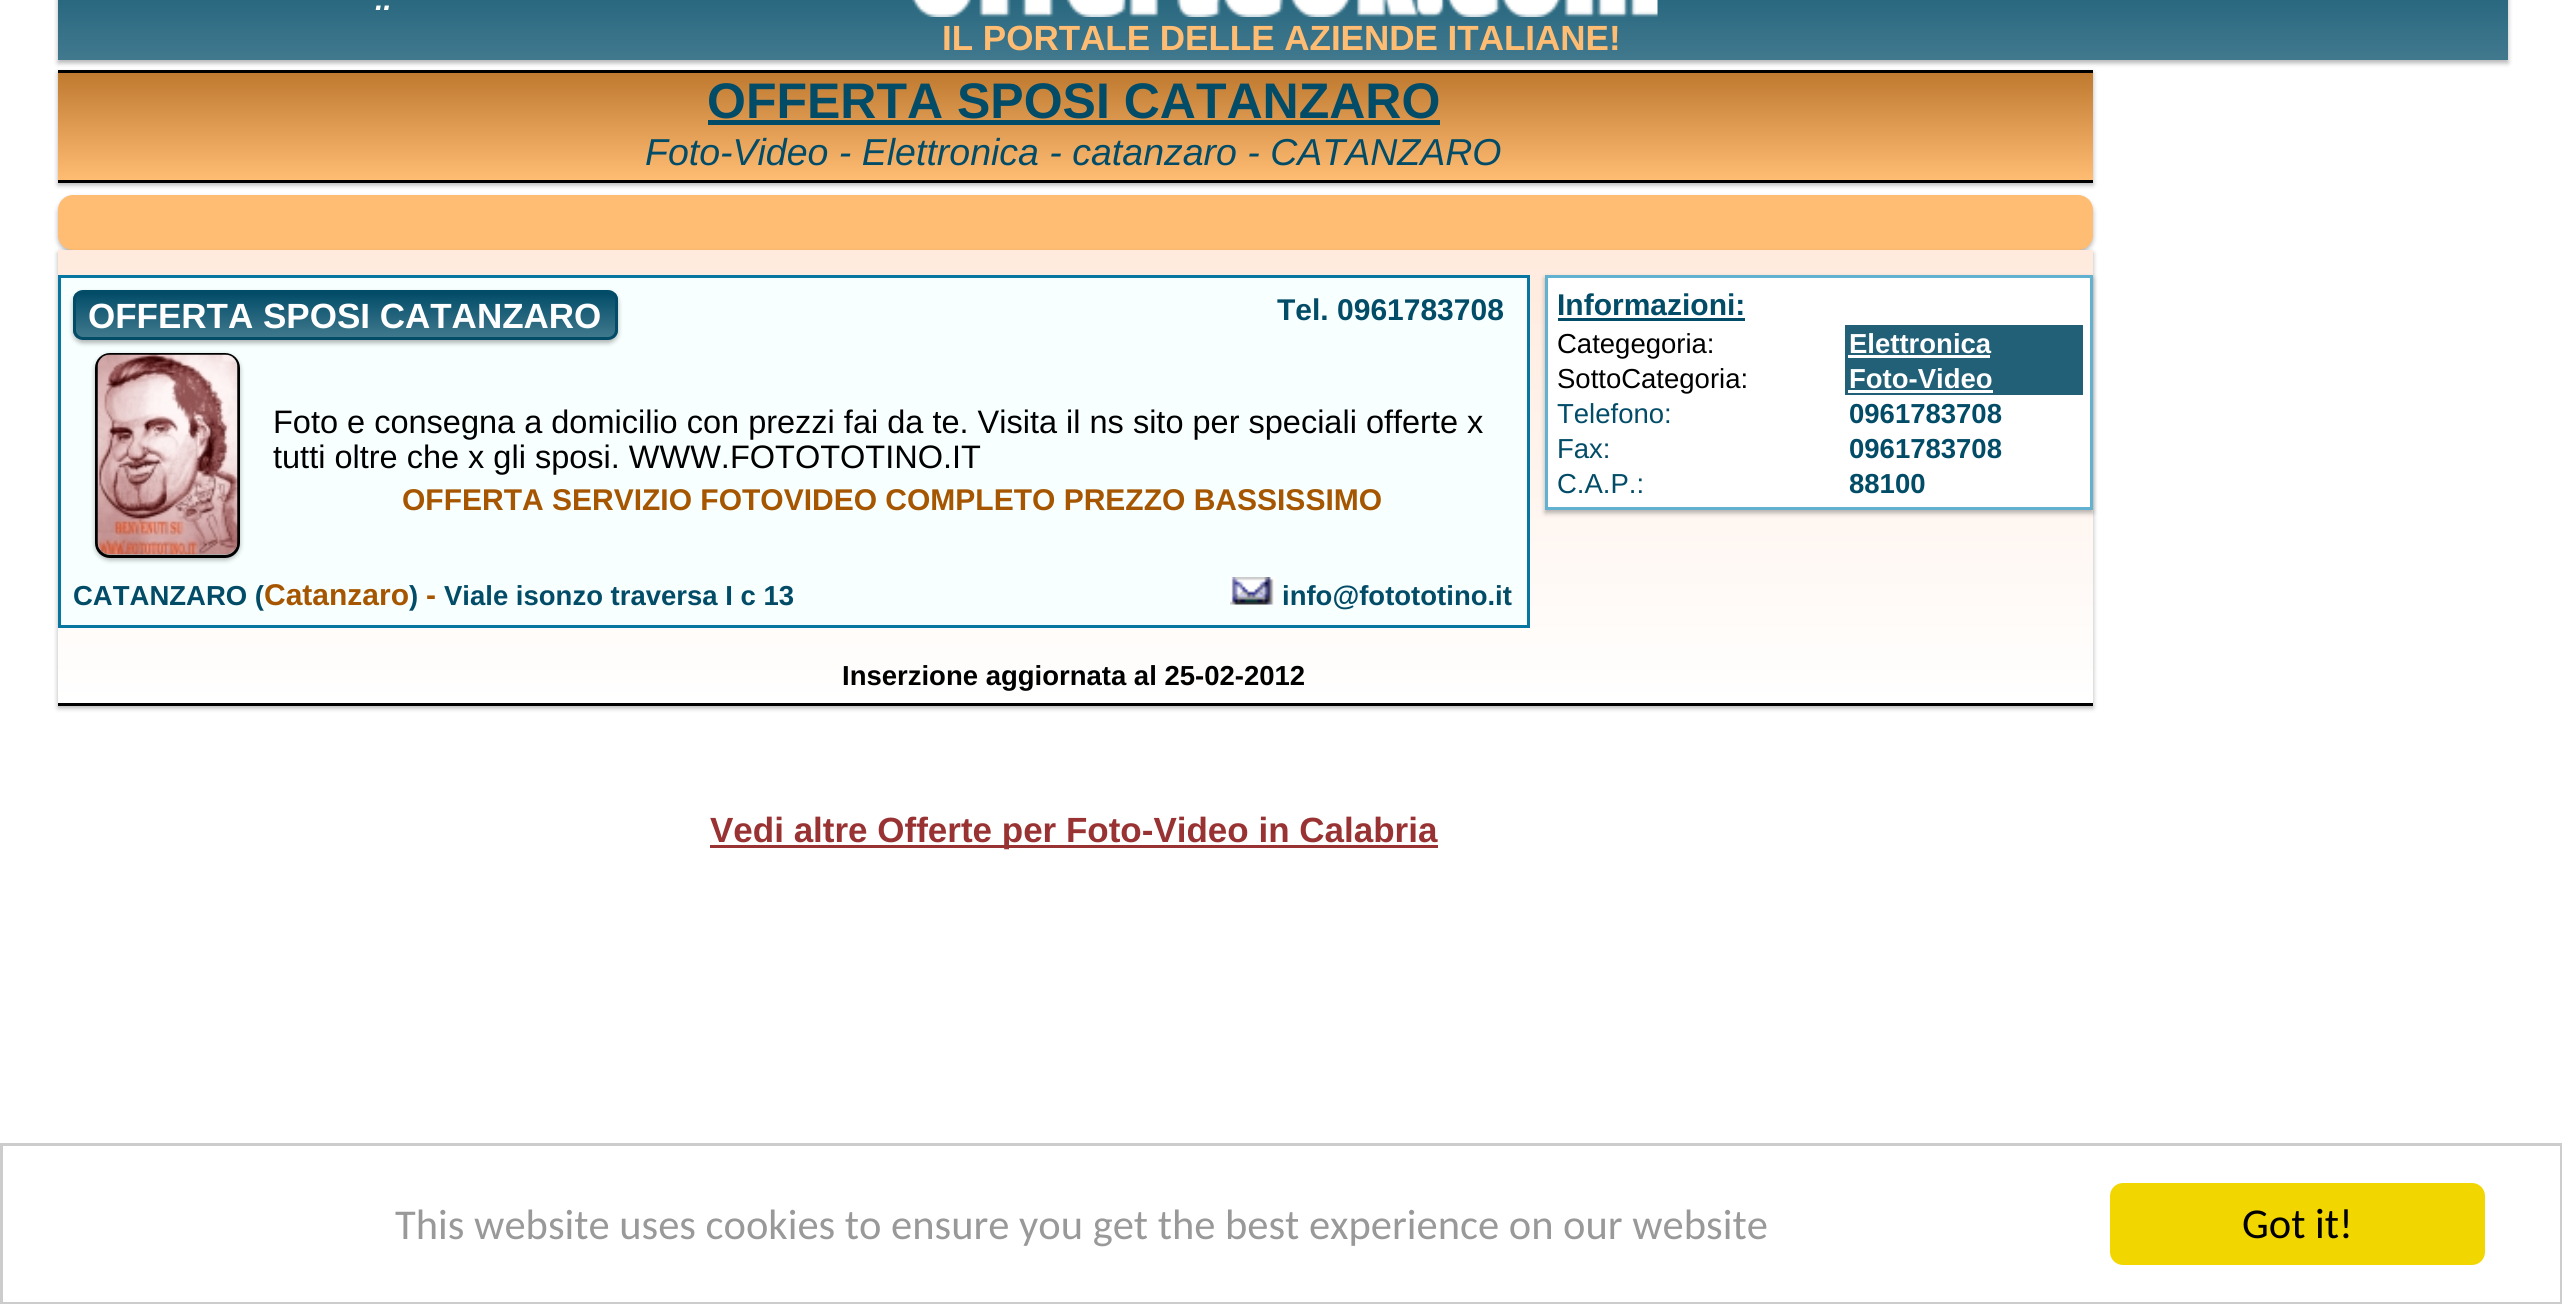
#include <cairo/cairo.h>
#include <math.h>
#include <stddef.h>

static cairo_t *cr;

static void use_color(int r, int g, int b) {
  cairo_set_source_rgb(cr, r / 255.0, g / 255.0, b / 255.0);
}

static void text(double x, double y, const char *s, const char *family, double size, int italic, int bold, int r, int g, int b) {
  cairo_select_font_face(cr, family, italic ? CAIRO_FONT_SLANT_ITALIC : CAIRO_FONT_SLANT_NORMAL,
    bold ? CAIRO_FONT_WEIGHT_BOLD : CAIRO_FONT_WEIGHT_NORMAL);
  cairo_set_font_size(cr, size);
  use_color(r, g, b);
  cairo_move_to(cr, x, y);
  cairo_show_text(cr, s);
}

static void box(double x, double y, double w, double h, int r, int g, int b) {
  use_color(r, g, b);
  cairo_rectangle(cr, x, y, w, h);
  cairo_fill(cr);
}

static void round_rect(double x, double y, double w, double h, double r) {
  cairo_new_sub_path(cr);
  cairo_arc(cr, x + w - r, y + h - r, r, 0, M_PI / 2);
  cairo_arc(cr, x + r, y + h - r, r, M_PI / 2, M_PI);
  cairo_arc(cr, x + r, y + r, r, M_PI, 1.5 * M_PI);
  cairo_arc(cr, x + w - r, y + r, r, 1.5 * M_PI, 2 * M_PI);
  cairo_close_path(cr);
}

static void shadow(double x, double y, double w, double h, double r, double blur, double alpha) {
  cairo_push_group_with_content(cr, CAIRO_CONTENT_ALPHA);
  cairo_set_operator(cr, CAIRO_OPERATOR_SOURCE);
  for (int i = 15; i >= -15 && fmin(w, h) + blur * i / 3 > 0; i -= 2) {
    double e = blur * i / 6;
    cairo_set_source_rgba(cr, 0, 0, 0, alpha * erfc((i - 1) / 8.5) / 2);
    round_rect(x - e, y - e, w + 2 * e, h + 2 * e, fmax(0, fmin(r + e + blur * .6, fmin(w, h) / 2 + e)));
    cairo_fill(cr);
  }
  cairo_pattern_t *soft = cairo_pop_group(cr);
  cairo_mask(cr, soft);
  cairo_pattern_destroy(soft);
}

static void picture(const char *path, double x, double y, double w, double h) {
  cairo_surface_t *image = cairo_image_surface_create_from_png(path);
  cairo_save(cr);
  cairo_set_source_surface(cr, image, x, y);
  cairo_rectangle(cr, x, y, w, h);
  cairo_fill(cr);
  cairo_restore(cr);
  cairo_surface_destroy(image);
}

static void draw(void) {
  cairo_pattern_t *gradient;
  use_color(255, 255, 255);
  cairo_paint(cr);
  use_color(0, 0, 0);
  shadow(58, 73, 2035, 112, 0, 2.5, 0.3);
  box(58, 70, 2035, 3, 0, 0, 0);
  use_color(0, 0, 0);
  shadow(58, -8, 2450, 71, 0, 2.5, 0.3);
  gradient = cairo_pattern_create_linear(58, -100, 58, 60);
  cairo_pattern_add_color_stop_rgba(gradient, 0, 0.008, 0.298, 0.408, 1);
  cairo_pattern_add_color_stop_rgba(gradient, 1, 0.255, 0.475, 0.557, 1);
  cairo_set_source(cr, gradient);
  cairo_pattern_destroy(gradient);
  cairo_rectangle(cr, 58, 0, 2450, 60);
  cairo_fill(cr);
  picture("img_01.png", 912, 0, 746, 17);
  gradient = cairo_pattern_create_linear(58, 73, 58, 180);
  cairo_pattern_add_color_stop_rgba(gradient, 0, 0.749, 0.478, 0.188, 1);
  cairo_pattern_add_color_stop_rgba(gradient, 1, 1, 0.737, 0.451, 1);
  cairo_set_source(cr, gradient);
  cairo_pattern_destroy(gradient);
  cairo_rectangle(cr, 58, 73, 2035, 107);
  cairo_fill(cr);
  box(58, 180, 2035, 3, 0, 0, 0);
  box(708, 120, 732, 5, 2, 76, 104);
  use_color(0, 0, 0);
  shadow(58, 198, 2035, 55, 15, 2.5, 0.3);
  use_color(255, 188, 115);
  round_rect(58, 195, 2035, 55, 15);
  cairo_fill(cr);
  use_color(0, 0, 0);
  shadow(58, 253, 2035, 455, 0, 2.5, 0.3);
  gradient = cairo_pattern_create_linear(58, 250, 58, 703);
  cairo_pattern_add_color_stop_rgba(gradient, 0, 1, 0.918, 0.867, 1);
  cairo_pattern_add_color_stop_rgba(gradient, 1, 1, 1, 1, 1);
  cairo_set_source(cr, gradient);
  cairo_pattern_destroy(gradient);
  cairo_rectangle(cr, 58, 250, 2035, 453);
  cairo_fill(cr);
  box(58, 703, 2035, 3, 0, 0, 0);
  use_color(247, 255, 255);
  cairo_rectangle(cr, 59.5, 276.5, 1469, 350);
  cairo_fill_preserve(cr);
  use_color(7, 118, 160);
  cairo_set_line_width(cr, 3);
  cairo_stroke(cr);
  use_color(0, 0, 0);
  shadow(73, 293, 545, 50, 10, 2.5, 0.3);
  cairo_save(cr);
  round_rect(73, 290, 545, 50, 10);
  cairo_clip(cr);
  gradient = cairo_pattern_create_linear(75, 293, 75, 338);
  cairo_pattern_add_color_stop_rgba(gradient, 0, 0.008, 0.298, 0.408, 1);
  cairo_pattern_add_color_stop_rgba(gradient, 1, 0.255, 0.475, 0.557, 1);
  cairo_set_source(cr, gradient);
  cairo_pattern_destroy(gradient);
  cairo_rectangle(cr, 73, 293, 545, 45);
  cairo_fill(cr);
  cairo_restore(cr);
  round_rect(74.5, 291.5, 542, 47, 8.5);
  use_color(2, 76, 104);
  cairo_stroke(cr);
  use_color(0, 0, 0);
  shadow(95, 355, 145, 205, 15, 2.5, 0.3);
  round_rect(96.5, 354.5, 142, 202, 13.5);
  use_color(0, 0, 0);
  cairo_stroke(cr);
  picture("img_02.png", 97, 354, 141, 201);
  picture("img_03.png", 1230, 577, 45, 28);
  use_color(0, 0, 0);
  shadow(1545, 278, 548, 235, 0, 2.5, 0.3);
  use_color(255, 255, 255);
  cairo_rectangle(cr, 1546.5, 276.5, 545, 232);
  cairo_fill_preserve(cr);
  use_color(98, 177, 208);
  cairo_stroke(cr);
  box(1558, 318, 187, 3, 2, 76, 104);
  box(1845, 325, 238, 70, 34, 96, 120);
  box(1848, 355, 142, 3, 255, 255, 255);
  box(1848, 390, 145, 3, 255, 255, 255);
  box(710, 845, 728, 3, 153, 51, 51);
  cairo_rectangle(cr, 1.5, 1144.5, 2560, 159);
  use_color(204, 204, 204);
  cairo_stroke(cr);
  use_color(241, 214, 0);
  round_rect(2110, 1183, 375, 82, 13);
  cairo_fill(cr);
  text(375, 10, "..", "Liberation Sans", 30, 1, 1, 255, 255, 255);
  text(942, 50, "IL PORTALE DELLE AZIENDE ITALIANE!", "Liberation Sans", 35, 0, 1, 255, 188, 115);
  text(707, 118, "OFFERTA SPOSI CATANZARO", "Liberation Sans", 50, 0, 1, 2, 76, 104);
  text(645, 165, "Foto-Video - Elettronica - catanzaro - CATANZARO", "Liberation Sans", 37.5, 1, 0, 2, 76, 104);
  text(88, 328, "OFFERTA SPOSI CATANZARO", "Liberation Sans", 35, 0, 1, 255, 255, 255);
  text(1277, 320, "Tel. 0961783708", "Liberation Sans", 30, 0, 1, 2, 76, 104);
  text(273, 433, "Foto e consegna a domicilio con prezzi fai da te. Visita il ns sito per speciali offerte x", "Liberation Sans", 32.5, 0, 0, 0, 0, 0);
  text(273, 468, "tutti oltre che x gli sposi. WWW.FOTOTOTINO.IT", "Liberation Sans", 32.5, 0, 0, 0, 0, 0);
  text(402, 510, "OFFERTA SERVIZIO FOTOVIDEO COMPLETO PREZZO BASSISSIMO", "Liberation Sans", 30, 0, 1, 166, 86, 0);
  text(73, 605, "CATANZARO (", "Liberation Sans", 27.5, 0, 1, 2, 76, 104);
  text(264, 605, "Catanzaro", "Liberation Sans", 30, 0, 1, 166, 86, 0);
  text(409, 605, ")", "Liberation Sans", 27.5, 0, 1, 2, 76, 104);
  text(426, 605, "-", "Liberation Sans", 30, 0, 1, 166, 86, 0);
  text(444, 605, "Viale isonzo traversa I c 13", "Liberation Sans", 27.5, 0, 1, 2, 76, 104);
  text(1282, 605, "info@fotototino.it", "Liberation Sans", 27.5, 0, 1, 2, 76, 104);
  text(1557, 315, "Informazioni:", "Liberation Sans", 30, 0, 1, 2, 76, 104);
  text(1557, 353, "Categegoria:", "Liberation Sans", 27.5, 0, 0, 0, 0, 0);
  text(1849, 353, "Elettronica", "Liberation Sans", 27.5, 0, 1, 255, 255, 255);
  text(1557, 388, "SottoCategoria:", "Liberation Sans", 27.5, 0, 0, 0, 0, 0);
  text(1849, 388, "Foto-Video", "Liberation Sans", 27.5, 0, 1, 255, 255, 255);
  text(1557, 423, "Telefono:", "Liberation Sans", 27.5, 0, 0, 2, 76, 104);
  text(1849, 423, "0961783708", "Liberation Sans", 27.5, 0, 1, 2, 76, 104);
  text(1557, 458, "Fax:", "Liberation Sans", 27.5, 0, 0, 2, 76, 104);
  text(1849, 458, "0961783708", "Liberation Sans", 27.5, 0, 1, 2, 76, 104);
  text(1557, 493, "C.A.P.:", "Liberation Sans", 27.5, 0, 0, 2, 76, 104);
  text(1849, 493, "88100", "Liberation Sans", 27.5, 0, 1, 2, 76, 104);
  text(842, 685, "Inserzione aggiornata al 25-02-2012", "Liberation Sans", 27.5, 0, 1, 0, 0, 0);
  text(710, 842, "Vedi altre Offerte per Foto-Video in Calabria", "Liberation Sans", 35, 0, 1, 153, 51, 51);
  text(395, 1239, "This website uses cookies to ensure you get the best experience on our website", "Carlito", 42.5, 0, 0, 153, 153, 153);
  text(2242, 1238, "Got it!", "Carlito", 42.5, 0, 0, 0, 0, 0);
}

int main(void) {
  cairo_surface_t *surface = cairo_image_surface_create(CAIRO_FORMAT_RGB24, 2562, 1304);
  cr = cairo_create(surface);
  cairo_font_options_t *options = cairo_font_options_create();
  cairo_font_options_set_hint_metrics(options, CAIRO_HINT_METRICS_OFF);
  cairo_font_options_set_hint_style(options, CAIRO_HINT_STYLE_NONE);
  cairo_set_font_options(cr, options);
  cairo_set_miter_limit(cr, 4);
  draw();
  cairo_surface_write_to_png(surface, "out.png");
  cairo_font_options_destroy(options);
  cairo_destroy(cr);
  cairo_surface_destroy(surface);
  return 0;
}
